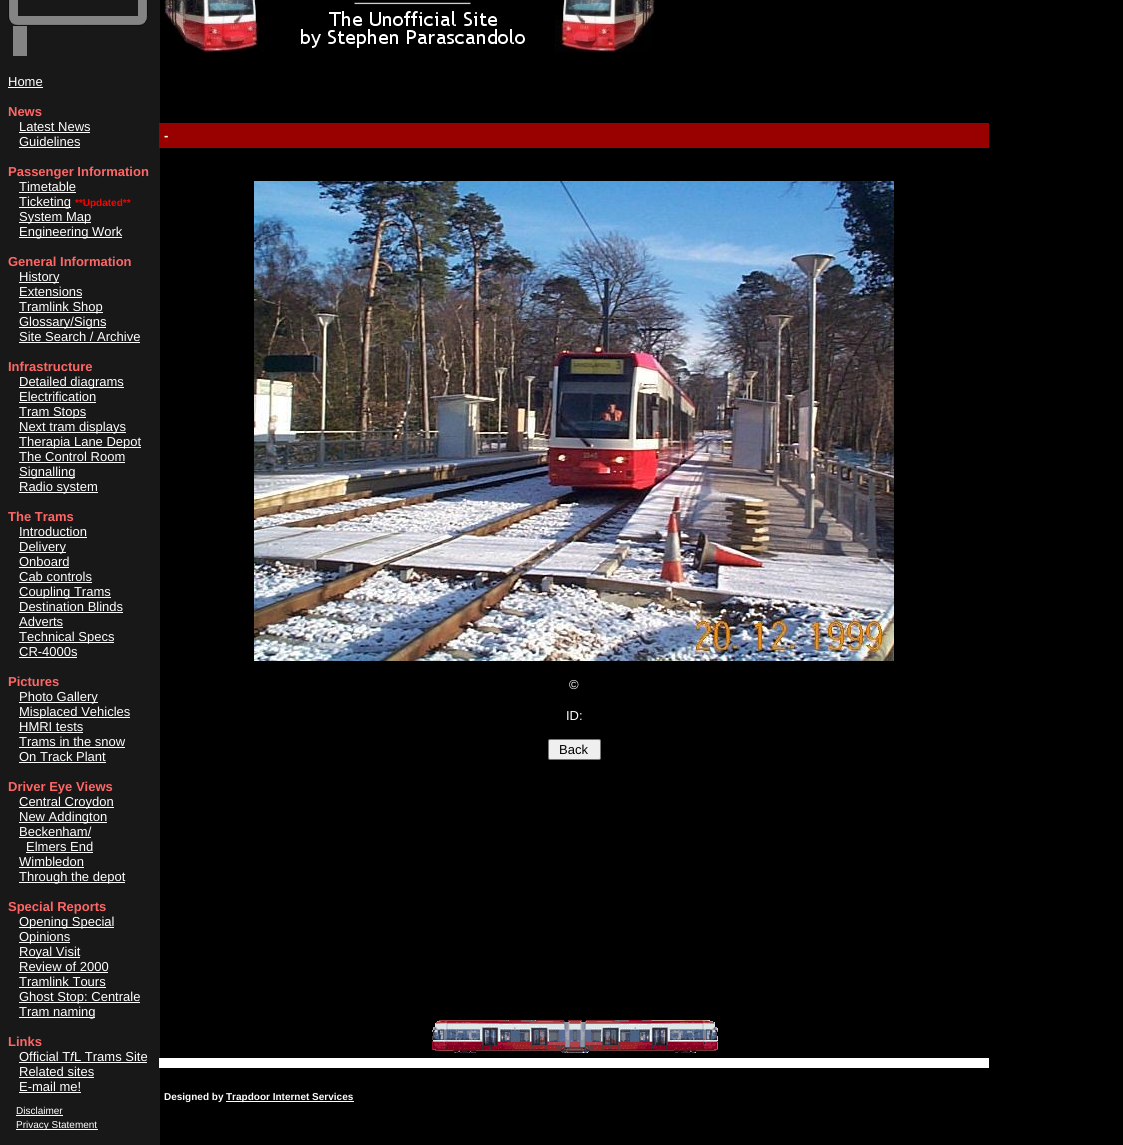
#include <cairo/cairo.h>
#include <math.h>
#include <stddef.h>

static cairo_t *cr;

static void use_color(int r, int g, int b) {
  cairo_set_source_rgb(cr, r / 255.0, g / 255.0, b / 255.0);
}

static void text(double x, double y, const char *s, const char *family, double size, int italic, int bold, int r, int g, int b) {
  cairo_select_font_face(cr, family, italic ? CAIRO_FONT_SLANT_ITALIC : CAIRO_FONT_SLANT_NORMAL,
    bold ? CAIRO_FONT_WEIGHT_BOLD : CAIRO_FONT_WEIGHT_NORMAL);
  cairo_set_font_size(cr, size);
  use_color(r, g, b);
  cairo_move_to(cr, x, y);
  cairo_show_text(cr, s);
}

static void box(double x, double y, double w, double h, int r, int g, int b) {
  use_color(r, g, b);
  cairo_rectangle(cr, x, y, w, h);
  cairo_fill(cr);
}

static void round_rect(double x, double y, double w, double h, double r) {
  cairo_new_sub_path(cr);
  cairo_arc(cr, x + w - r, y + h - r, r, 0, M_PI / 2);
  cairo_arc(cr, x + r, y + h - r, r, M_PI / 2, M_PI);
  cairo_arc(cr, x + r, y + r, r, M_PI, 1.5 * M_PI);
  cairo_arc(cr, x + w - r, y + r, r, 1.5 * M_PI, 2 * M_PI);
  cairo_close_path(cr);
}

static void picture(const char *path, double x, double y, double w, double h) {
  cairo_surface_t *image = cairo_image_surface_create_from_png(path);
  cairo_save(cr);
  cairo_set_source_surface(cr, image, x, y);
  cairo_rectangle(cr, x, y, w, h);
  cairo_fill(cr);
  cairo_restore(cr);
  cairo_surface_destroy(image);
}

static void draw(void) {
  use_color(0, 0, 0);
  cairo_paint(cr);
  box(0, 0, 160, 1145, 24, 24, 24);
  picture("img_01.png", 8, 0, 10, 16);
  picture("img_02.png", 138, 0, 10, 16);
  picture("img_03.png", 8, 16, 139, 10);
  box(13, 26, 14, 30, 132, 132, 132);
  box(8, 87, 35, 1, 255, 255, 255);
  box(19, 132, 71, 1, 255, 255, 255);
  box(19, 147, 61, 1, 255, 255, 255);
  box(19, 192, 57, 1, 255, 255, 255);
  box(19, 207, 52, 1, 255, 255, 255);
  box(19, 222, 72, 1, 255, 255, 255);
  box(19, 237, 103, 1, 255, 255, 255);
  box(19, 282, 40, 1, 255, 255, 255);
  box(19, 297, 63, 1, 255, 255, 255);
  box(19, 312, 84, 1, 255, 255, 255);
  box(19, 327, 87, 1, 255, 255, 255);
  box(19, 342, 121, 1, 255, 255, 255);
  box(19, 387, 105, 1, 255, 255, 255);
  box(19, 402, 77, 1, 255, 255, 255);
  box(19, 417, 67, 1, 255, 255, 255);
  box(19, 432, 107, 1, 255, 255, 255);
  box(19, 447, 122, 1, 255, 255, 255);
  box(19, 462, 106, 1, 255, 255, 255);
  box(19, 477, 56, 1, 255, 255, 255);
  box(19, 492, 79, 1, 255, 255, 255);
  box(19, 537, 68, 1, 255, 255, 255);
  box(19, 552, 47, 1, 255, 255, 255);
  box(19, 567, 50, 1, 255, 255, 255);
  box(19, 582, 73, 1, 255, 255, 255);
  box(19, 597, 92, 1, 255, 255, 255);
  box(19, 612, 104, 1, 255, 255, 255);
  box(19, 627, 44, 1, 255, 255, 255);
  box(19, 642, 95, 1, 255, 255, 255);
  box(19, 657, 58, 1, 255, 255, 255);
  box(19, 702, 79, 1, 255, 255, 255);
  box(19, 717, 111, 1, 255, 255, 255);
  box(19, 732, 64, 1, 255, 255, 255);
  box(19, 747, 106, 1, 255, 255, 255);
  box(19, 762, 87, 1, 255, 255, 255);
  box(19, 807, 95, 1, 255, 255, 255);
  box(19, 822, 88, 1, 255, 255, 255);
  box(19, 837, 72, 1, 255, 255, 255);
  box(26, 852, 67, 1, 255, 255, 255);
  box(19, 867, 65, 1, 255, 255, 255);
  box(19, 882, 106, 1, 255, 255, 255);
  box(19, 927, 95, 1, 255, 255, 255);
  box(19, 942, 51, 1, 255, 255, 255);
  box(19, 957, 61, 1, 255, 255, 255);
  box(19, 972, 89, 1, 255, 255, 255);
  box(19, 987, 87, 1, 255, 255, 255);
  box(19, 1002, 121, 1, 255, 255, 255);
  box(19, 1017, 76, 1, 255, 255, 255);
  box(19, 1062, 128, 1, 255, 255, 255);
  box(19, 1077, 75, 1, 255, 255, 255);
  box(19, 1092, 62, 1, 255, 255, 255);
  box(16, 1115, 47, 1, 255, 255, 255);
  box(16, 1129, 82, 1, 255, 255, 255);
  picture("img_04.png", 164, 0, 100, 52);
  picture("img_05.png", 301, 2, 224, 46);
  picture("img_06.png", 555, 0, 100, 52);
  box(159, 123, 830, 25, 153, 0, 0);
  picture("img_07.png", 254, 181, 640, 480);
  use_color(239, 239, 239);
  round_rect(548.5, 739.5, 52, 20, 1.5);
  cairo_fill_preserve(cr);
  use_color(118, 118, 118);
  cairo_set_line_width(cr, 1);
  cairo_stroke(cr);
  picture("img_08.png", 432, 1020, 286, 33);
  box(159, 1058, 830, 10, 255, 255, 255);
  box(226, 1101, 128, 1, 255, 255, 255);
  text(8, 86, "Home", "Liberation Sans", 13, 0, 0, 255, 255, 255);
  text(8, 116, "News", "Liberation Sans", 13, 0, 1, 255, 102, 102);
  text(19, 131, "Latest News", "Liberation Sans", 13, 0, 0, 255, 255, 255);
  text(19, 146, "Guidelines", "Liberation Sans", 13, 0, 0, 255, 255, 255);
  text(8, 176, "Passenger Information", "Liberation Sans", 13, 0, 1, 255, 102, 102);
  text(19, 191, "Timetable", "Liberation Sans", 13, 0, 0, 255, 255, 255);
  text(19, 206, "Ticketing", "Liberation Sans", 13, 0, 0, 255, 255, 255);
  text(75, 206, "**Updated**", "Liberation Sans", 10, 0, 1, 255, 0, 0);
  text(19, 221, "System Map", "Liberation Sans", 13, 0, 0, 255, 255, 255);
  text(19, 236, "Engineering Work", "Liberation Sans", 13, 0, 0, 255, 255, 255);
  text(8, 266, "General Information", "Liberation Sans", 13, 0, 1, 255, 102, 102);
  text(19, 281, "History", "Liberation Sans", 13, 0, 0, 255, 255, 255);
  text(19, 296, "Extensions", "Liberation Sans", 13, 0, 0, 255, 255, 255);
  text(19, 311, "Tramlink Shop", "Liberation Sans", 13, 0, 0, 255, 255, 255);
  text(19, 326, "Glossary/Signs", "Liberation Sans", 13, 0, 0, 255, 255, 255);
  text(19, 341, "Site Search / Archive", "Liberation Sans", 13, 0, 0, 255, 255, 255);
  text(8, 371, "Infrastructure", "Liberation Sans", 13, 0, 1, 255, 102, 102);
  text(19, 386, "Detailed diagrams", "Liberation Sans", 13, 0, 0, 255, 255, 255);
  text(19, 401, "Electrification", "Liberation Sans", 13, 0, 0, 255, 255, 255);
  text(19, 416, "Tram Stops", "Liberation Sans", 13, 0, 0, 255, 255, 255);
  text(19, 431, "Next tram displays", "Liberation Sans", 13, 0, 0, 255, 255, 255);
  text(19, 446, "Therapia Lane Depot", "Liberation Sans", 13, 0, 0, 255, 255, 255);
  text(19, 461, "The Control Room", "Liberation Sans", 13, 0, 0, 255, 255, 255);
  text(19, 476, "Signalling", "Liberation Sans", 13, 0, 0, 255, 255, 255);
  text(19, 491, "Radio system", "Liberation Sans", 13, 0, 0, 255, 255, 255);
  text(8, 521, "The Trams", "Liberation Sans", 13, 0, 1, 255, 102, 102);
  text(19, 536, "Introduction", "Liberation Sans", 13, 0, 0, 255, 255, 255);
  text(19, 551, "Delivery", "Liberation Sans", 13, 0, 0, 255, 255, 255);
  text(19, 566, "Onboard", "Liberation Sans", 13, 0, 0, 255, 255, 255);
  text(19, 581, "Cab controls", "Liberation Sans", 13, 0, 0, 255, 255, 255);
  text(19, 596, "Coupling Trams", "Liberation Sans", 13, 0, 0, 255, 255, 255);
  text(19, 611, "Destination Blinds", "Liberation Sans", 13, 0, 0, 255, 255, 255);
  text(19, 626, "Adverts", "Liberation Sans", 13, 0, 0, 255, 255, 255);
  text(19, 641, "Technical Specs", "Liberation Sans", 13, 0, 0, 255, 255, 255);
  text(19, 656, "CR-4000s", "Liberation Sans", 13, 0, 0, 255, 255, 255);
  text(8, 686, "Pictures", "Liberation Sans", 13, 0, 1, 255, 102, 102);
  text(19, 701, "Photo Gallery", "Liberation Sans", 13, 0, 0, 255, 255, 255);
  text(19, 716, "Misplaced Vehicles", "Liberation Sans", 13, 0, 0, 255, 255, 255);
  text(19, 731, "HMRI tests", "Liberation Sans", 13, 0, 0, 255, 255, 255);
  text(19, 746, "Trams in the snow", "Liberation Sans", 13, 0, 0, 255, 255, 255);
  text(19, 761, "On Track Plant", "Liberation Sans", 13, 0, 0, 255, 255, 255);
  text(8, 791, "Driver Eye Views", "Liberation Sans", 13, 0, 1, 255, 102, 102);
  text(19, 806, "Central Croydon", "Liberation Sans", 13, 0, 0, 255, 255, 255);
  text(19, 821, "New Addington", "Liberation Sans", 13, 0, 0, 255, 255, 255);
  text(19, 836, "Beckenham/", "Liberation Sans", 13, 0, 0, 255, 255, 255);
  text(26, 851, "Elmers End", "Liberation Sans", 13, 0, 0, 255, 255, 255);
  text(19, 866, "Wimbledon", "Liberation Sans", 13, 0, 0, 255, 255, 255);
  text(19, 881, "Through the depot", "Liberation Sans", 13, 0, 0, 255, 255, 255);
  text(8, 911, "Special Reports", "Liberation Sans", 13, 0, 1, 255, 102, 102);
  text(19, 926, "Opening Special", "Liberation Sans", 13, 0, 0, 255, 255, 255);
  text(19, 941, "Opinions", "Liberation Sans", 13, 0, 0, 255, 255, 255);
  text(19, 956, "Royal Visit", "Liberation Sans", 13, 0, 0, 255, 255, 255);
  text(19, 971, "Review of 2000", "Liberation Sans", 13, 0, 0, 255, 255, 255);
  text(19, 986, "Tramlink Tours", "Liberation Sans", 13, 0, 0, 255, 255, 255);
  text(19, 1001, "Ghost Stop: Centrale", "Liberation Sans", 13, 0, 0, 255, 255, 255);
  text(19, 1016, "Tram naming", "Liberation Sans", 13, 0, 0, 255, 255, 255);
  text(8, 1046, "Links", "Liberation Sans", 13, 0, 1, 255, 102, 102);
  text(19, 1061, "Official T", "Liberation Sans", 13, 0, 0, 255, 255, 255);
  text(70, 1061, "f", "Liberation Sans", 13, 1, 0, 255, 255, 255);
  text(74, 1061, "L Trams Site", "Liberation Sans", 13, 0, 0, 255, 255, 255);
  text(19, 1076, "Related sites", "Liberation Sans", 13, 0, 0, 255, 255, 255);
  text(19, 1091, "E-mail me!", "Liberation Sans", 13, 0, 0, 255, 255, 255);
  text(16, 1114, "Disclaimer", "Liberation Sans", 10, 0, 0, 255, 255, 255);
  text(16, 1128, "Privacy Statement", "Liberation Sans", 10, 0, 0, 255, 255, 255);
  text(164, 140, "-", "Liberation Sans", 13, 0, 1, 255, 255, 255);
  text(569, 689, "©", "Liberation Sans", 13, 0, 0, 255, 255, 255);
  text(566, 720, "ID:", "Liberation Sans", 13, 0, 0, 255, 255, 255);
  text(559, 754, "Back", "Liberation Sans", 13, 0, 0, 0, 0, 0);
  text(164, 1100, "Designed by", "Liberation Sans", 10, 0, 1, 255, 255, 255);
  text(226, 1100, "Trapdoor Internet Services", "Liberation Sans", 10, 0, 1, 255, 255, 255);
}

int main(void) {
  cairo_surface_t *surface = cairo_image_surface_create(CAIRO_FORMAT_RGB24, 1123, 1145);
  cr = cairo_create(surface);
  cairo_font_options_t *options = cairo_font_options_create();
  cairo_font_options_set_hint_metrics(options, CAIRO_HINT_METRICS_OFF);
  cairo_font_options_set_hint_style(options, CAIRO_HINT_STYLE_NONE);
  cairo_set_font_options(cr, options);
  cairo_set_miter_limit(cr, 4);
  draw();
  cairo_surface_write_to_png(surface, "out.png");
  cairo_font_options_destroy(options);
  cairo_destroy(cr);
  cairo_surface_destroy(surface);
  return 0;
}
